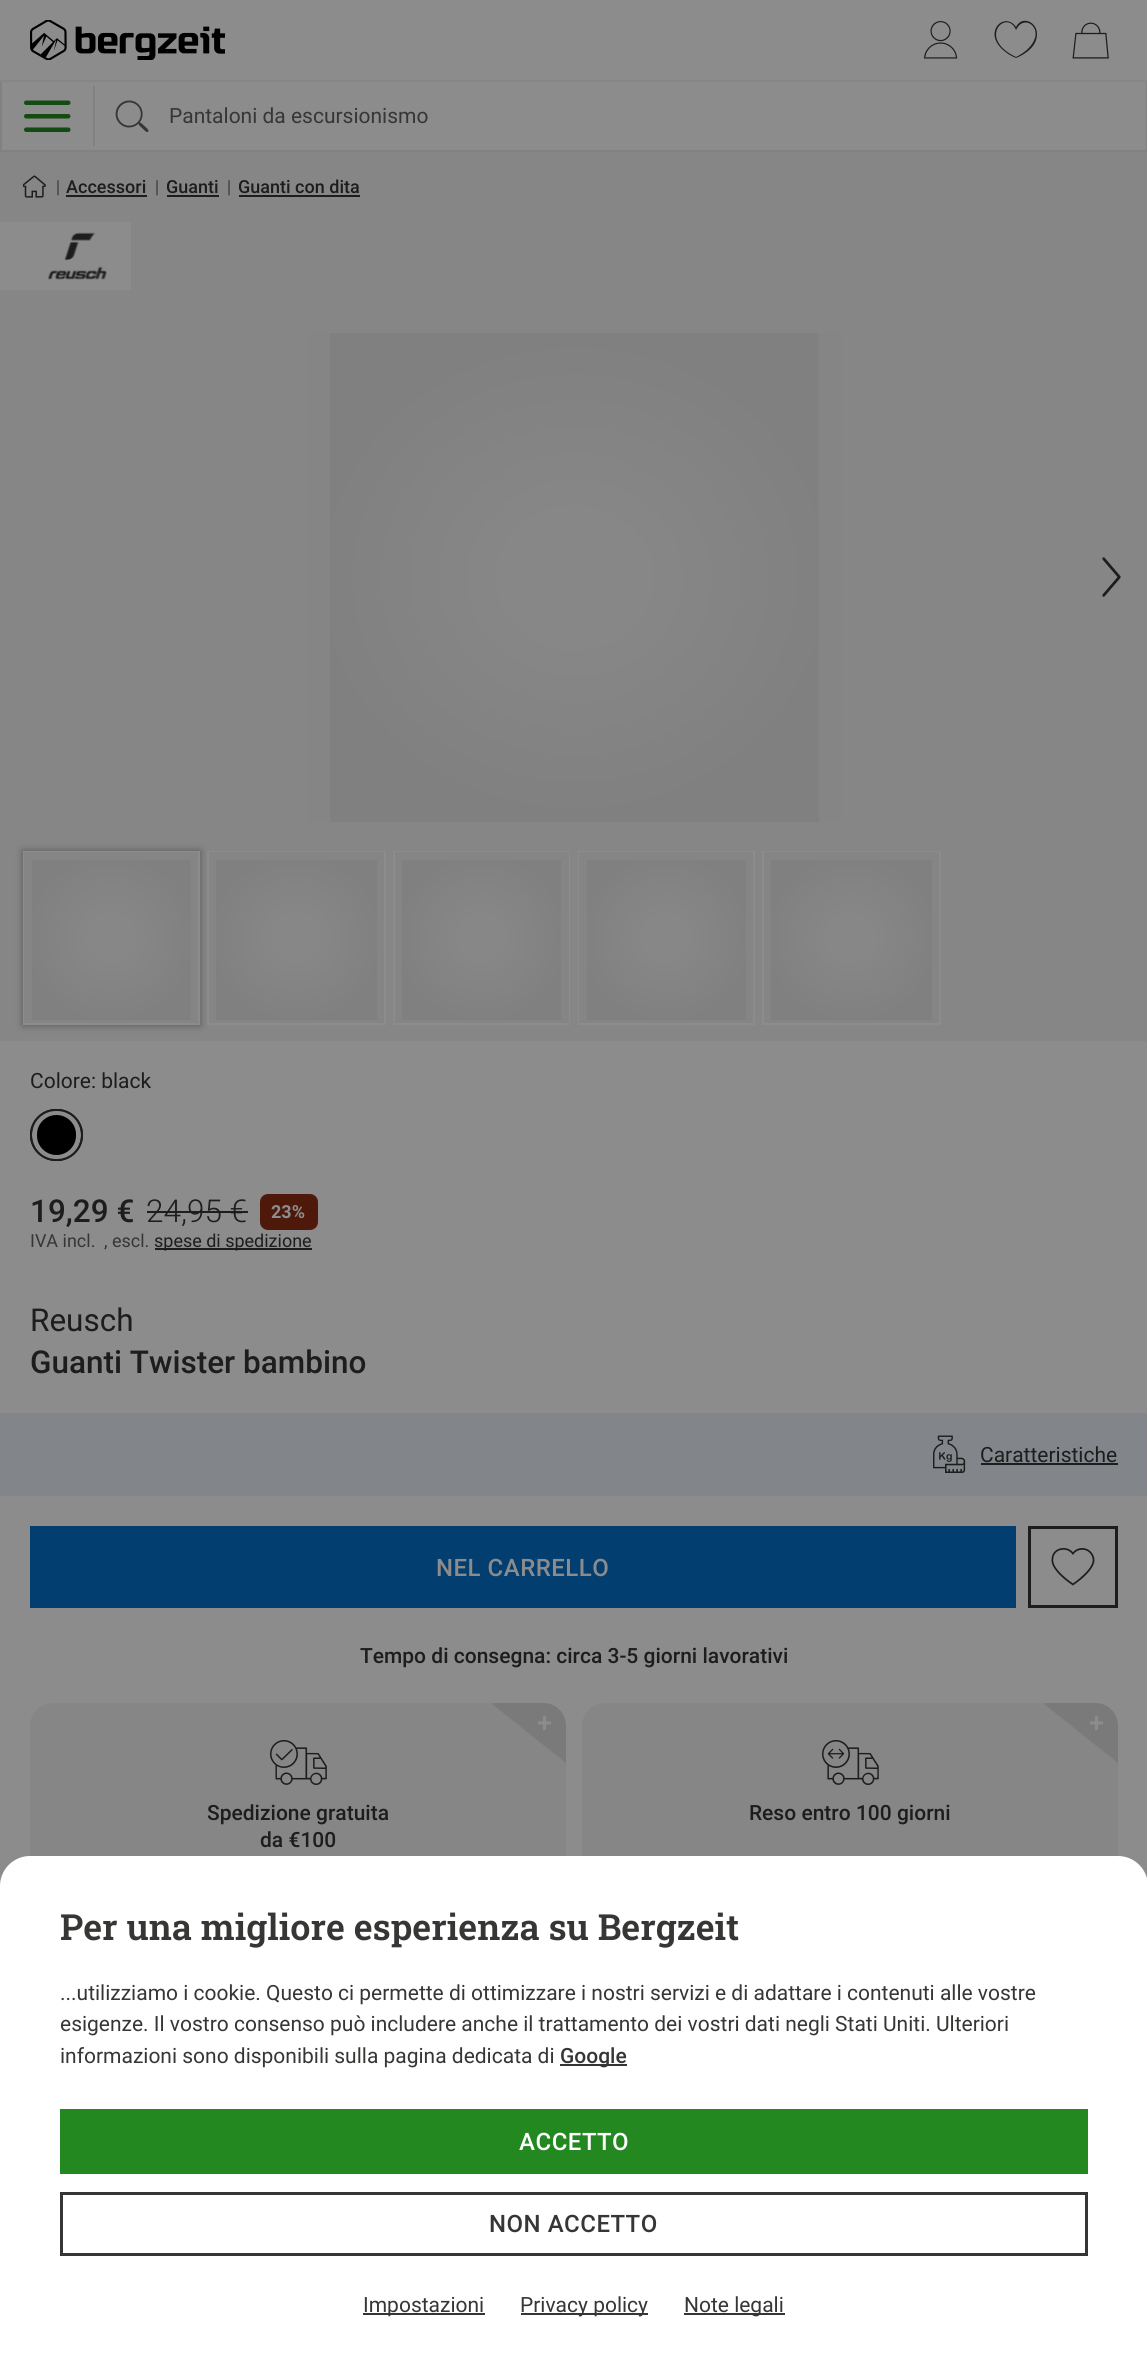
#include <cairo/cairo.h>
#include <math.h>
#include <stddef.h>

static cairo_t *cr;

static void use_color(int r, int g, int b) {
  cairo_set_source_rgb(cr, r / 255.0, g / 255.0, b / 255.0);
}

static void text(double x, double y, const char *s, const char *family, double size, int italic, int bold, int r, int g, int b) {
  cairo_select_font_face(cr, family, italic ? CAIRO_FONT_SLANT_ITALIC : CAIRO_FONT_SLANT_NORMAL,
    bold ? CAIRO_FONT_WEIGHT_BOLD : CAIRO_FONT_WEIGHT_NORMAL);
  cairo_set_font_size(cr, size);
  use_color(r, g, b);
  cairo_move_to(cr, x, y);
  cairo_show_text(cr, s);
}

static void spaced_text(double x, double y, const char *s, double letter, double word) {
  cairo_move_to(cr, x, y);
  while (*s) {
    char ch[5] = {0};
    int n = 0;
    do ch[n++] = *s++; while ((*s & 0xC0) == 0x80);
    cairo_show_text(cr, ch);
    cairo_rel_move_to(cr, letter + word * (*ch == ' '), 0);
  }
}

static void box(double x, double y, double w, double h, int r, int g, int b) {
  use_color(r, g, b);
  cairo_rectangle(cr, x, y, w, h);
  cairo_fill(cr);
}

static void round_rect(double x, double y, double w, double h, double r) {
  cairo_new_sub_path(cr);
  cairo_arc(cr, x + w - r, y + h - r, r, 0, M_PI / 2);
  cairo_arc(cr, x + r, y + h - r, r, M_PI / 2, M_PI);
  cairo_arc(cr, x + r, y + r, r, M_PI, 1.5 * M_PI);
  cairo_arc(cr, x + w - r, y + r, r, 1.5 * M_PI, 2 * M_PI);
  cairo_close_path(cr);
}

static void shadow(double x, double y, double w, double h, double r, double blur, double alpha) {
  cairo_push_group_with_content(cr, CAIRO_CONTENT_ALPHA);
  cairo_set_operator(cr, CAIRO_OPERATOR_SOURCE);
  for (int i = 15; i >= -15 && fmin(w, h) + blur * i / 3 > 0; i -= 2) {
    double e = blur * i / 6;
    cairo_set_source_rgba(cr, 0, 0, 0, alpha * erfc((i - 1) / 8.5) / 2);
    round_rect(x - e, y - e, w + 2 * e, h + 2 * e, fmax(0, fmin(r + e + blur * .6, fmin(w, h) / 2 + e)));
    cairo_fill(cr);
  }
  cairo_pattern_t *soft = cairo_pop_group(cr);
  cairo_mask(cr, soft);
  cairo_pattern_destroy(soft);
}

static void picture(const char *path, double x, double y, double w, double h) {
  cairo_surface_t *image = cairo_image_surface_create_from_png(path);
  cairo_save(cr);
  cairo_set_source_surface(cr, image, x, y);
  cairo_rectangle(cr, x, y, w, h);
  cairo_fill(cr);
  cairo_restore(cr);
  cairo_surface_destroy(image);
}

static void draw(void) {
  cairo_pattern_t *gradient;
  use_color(140, 140, 140);
  cairo_paint(cr);
  box(1146, 81, 1, 71, 129, 129, 129);
  box(0, 150, 1147, 2, 129, 129, 129);
  box(0, 81, 2, 71, 129, 129, 129);
  box(0, 80, 1147, 2, 134, 134, 134);
  picture("img_01.png", 30, 20, 195, 40);
  picture("img_02.png", 924, 21, 34, 38);
  use_color(29, 29, 29);
  cairo_new_path(cr);
  cairo_move_to(cr, 1037, 34);
  cairo_curve_to(cr, 1037, 22, 1022, 15, 1016, 27);
  cairo_curve_to(cr, 1005, 11, 983, 31, 1002, 49);
  cairo_curve_to(cr, 1006, 53, 1011, 56, 1016, 58);
  cairo_curve_to(cr, 1026, 54, 1037, 46, 1037, 34);
  cairo_close_path(cr);
  cairo_move_to(cr, 1035, 38);
  cairo_curve_to(cr, 1032, 47, 1024, 53, 1016, 57);
  cairo_curve_to(cr, 976, 38, 1007, 8, 1016, 30);
  cairo_curve_to(cr, 1023, 15, 1039, 25, 1035, 38);
  cairo_close_path(cr);
  cairo_fill(cr);
  picture("img_03.png", 1072, 22, 37, 37);
  box(93, 86, 2, 60, 129, 129, 129);
  picture("img_04.png", 24, 100, 47, 32);
  picture("img_05.png", 115, 100, 34, 32);
  box(0, 152, 1147, 889, 134, 134, 134);
  picture("img_06.png", 23, 175, 23, 23);
  box(66, 195, 81, 2, 29, 29, 29);
  box(167, 195, 52, 2, 29, 29, 29);
  box(239, 195, 121, 2, 29, 29, 29);
  box(0, 222, 131, 68, 140, 140, 140);
  picture("img_07.png", 48, 232, 59, 48);
  box(308, 333, 534, 489, 140, 140, 140);
  box(330, 333, 489, 489, 135, 135, 135);
  gradient = cairo_pattern_create_radial(0, 0, 0, 0, 0, 1);
  cairo_pattern_set_matrix(gradient, &(cairo_matrix_t){1.0 / 267, 0, 0, 1.0 / 245, -1.0 * 575 / 267, -1.0 * 578 / 245});
  cairo_pattern_add_color_stop_rgba(gradient, 0.27, 0, 0, 0, 0);
  cairo_pattern_add_color_stop_rgba(gradient, 0.95, 0, 0, 0, 0.05);
  cairo_set_source(cr, gradient);
  cairo_pattern_destroy(gradient);
  cairo_rectangle(cr, 308, 333, 534, 489);
  cairo_fill(cr);
  picture("img_08.png", 1102, 557, 19, 40);
  use_color(0, 0, 0);
  shadow(23, 851, 177, 174, 0, 4, 0.35);
  box(23, 851, 177, 174, 140, 140, 140);
  box(32, 860, 159, 160, 135, 135, 135);
  gradient = cairo_pattern_create_radial(0, 0, 0, 0, 0, 1);
  cairo_pattern_set_matrix(gradient, &(cairo_matrix_t){1.0 / 87, 0, 0, 1.0 / 86, -1.0 * 111 / 87, -1.0 * 938 / 86});
  cairo_pattern_add_color_stop_rgba(gradient, 0.27, 0, 0, 0, 0);
  cairo_pattern_add_color_stop_rgba(gradient, 0.95, 0, 0, 0, 0.05);
  cairo_set_source(cr, gradient);
  cairo_pattern_destroy(gradient);
  cairo_rectangle(cr, 24, 852, 174, 171);
  cairo_fill(cr);
  box(207, 851, 179, 174, 140, 140, 140);
  box(216, 860, 161, 160, 135, 135, 135);
  gradient = cairo_pattern_create_radial(0, 0, 0, 0, 0, 1);
  cairo_pattern_set_matrix(gradient, &(cairo_matrix_t){1.0 / 88, 0, 0, 1.0 / 86, -1.0 * 296 / 88, -1.0 * 938 / 86});
  cairo_pattern_add_color_stop_rgba(gradient, 0.27, 0, 0, 0, 0);
  cairo_pattern_add_color_stop_rgba(gradient, 0.95, 0, 0, 0, 0.05);
  cairo_set_source(cr, gradient);
  cairo_pattern_destroy(gradient);
  cairo_rectangle(cr, 209, 852, 175, 171);
  cairo_fill(cr);
  box(393, 851, 177, 174, 140, 140, 140);
  box(402, 860, 159, 160, 135, 135, 135);
  gradient = cairo_pattern_create_radial(0, 0, 0, 0, 0, 1);
  cairo_pattern_set_matrix(gradient, &(cairo_matrix_t){1.0 / 87, 0, 0, 1.0 / 86, -1.0 * 482 / 87, -1.0 * 938 / 86});
  cairo_pattern_add_color_stop_rgba(gradient, 0.27, 0, 0, 0, 0);
  cairo_pattern_add_color_stop_rgba(gradient, 0.95, 0, 0, 0, 0.05);
  cairo_set_source(cr, gradient);
  cairo_pattern_destroy(gradient);
  cairo_rectangle(cr, 395, 852, 174, 171);
  cairo_fill(cr);
  box(578, 851, 177, 174, 140, 140, 140);
  box(587, 860, 159, 160, 135, 135, 135);
  gradient = cairo_pattern_create_radial(0, 0, 0, 0, 0, 1);
  cairo_pattern_set_matrix(gradient, &(cairo_matrix_t){1.0 / 87, 0, 0, 1.0 / 86, -1.0 * 666 / 87, -1.0 * 938 / 86});
  cairo_pattern_add_color_stop_rgba(gradient, 0.27, 0, 0, 0, 0);
  cairo_pattern_add_color_stop_rgba(gradient, 0.95, 0, 0, 0, 0.05);
  cairo_set_source(cr, gradient);
  cairo_pattern_destroy(gradient);
  cairo_rectangle(cr, 579, 852, 174, 171);
  cairo_fill(cr);
  box(762, 851, 179, 174, 140, 140, 140);
  box(771, 860, 161, 160, 135, 135, 135);
  gradient = cairo_pattern_create_radial(0, 0, 0, 0, 0, 1);
  cairo_pattern_set_matrix(gradient, &(cairo_matrix_t){1.0 / 88, 0, 0, 1.0 / 86, -1.0 * 851 / 88, -1.0 * 938 / 86});
  cairo_pattern_add_color_stop_rgba(gradient, 0.27, 0, 0, 0, 0);
  cairo_pattern_add_color_stop_rgba(gradient, 0.95, 0, 0, 0, 0.05);
  cairo_set_source(cr, gradient);
  cairo_pattern_destroy(gradient);
  cairo_rectangle(cr, 764, 852, 175, 171);
  cairo_fill(cr);
  use_color(0, 0, 0);
  round_rect(30, 1109, 53, 52, 26);
  cairo_fill(cr);
  round_rect(34.5, 1112.5, 44, 45, 22);
  use_color(140, 140, 140);
  cairo_set_line_width(cr, 5);
  cairo_stroke(cr);
  round_rect(31, 1110, 51, 50, 25);
  use_color(29, 29, 29);
  cairo_set_line_width(cr, 2);
  cairo_stroke(cr);
  box(147, 1211, 101, 2, 29, 29, 29);
  use_color(78, 25, 10);
  round_rect(260, 1194, 58, 36, 8);
  cairo_fill(cr);
  box(155, 1248, 157, 2, 29, 29, 29);
  box(0, 1413, 1147, 83, 130, 134, 138);
  picture("img_09.png", 933, 1435, 33, 38);
  box(981, 1463, 137, 2, 29, 29, 29);
  box(30, 1526, 986, 82, 2, 62, 111);
  cairo_rectangle(cr, 1029.5, 1527.5, 87, 79);
  use_color(29, 29, 29);
  cairo_set_line_width(cr, 3);
  cairo_stroke(cr);
  picture("img_10.png", 1051, 1548, 44, 38);
  use_color(134, 134, 134);
  round_rect(30, 1703, 536, 177, 23);
  cairo_fill(cr);
  use_color(122, 122, 122);
  cairo_new_path(cr);
  cairo_move_to(cr, 566, 1763);
  cairo_line_to(cr, 492, 1704);
  cairo_line_to(cr, 493, 1703);
  cairo_line_to(cr, 543, 1703);
  cairo_curve_to(cr, 556, 1703, 566, 1713, 566, 1726);
  cairo_close_path(cr);
  cairo_fill(cr);
  picture("img_11.png", 270, 1740, 57, 45);
  use_color(134, 134, 134);
  round_rect(582, 1703, 536, 177, 23);
  cairo_fill(cr);
  use_color(122, 122, 122);
  cairo_new_path(cr);
  cairo_move_to(cr, 1118, 1763);
  cairo_line_to(cr, 1044, 1704);
  cairo_line_to(cr, 1045, 1703);
  cairo_line_to(cr, 1095, 1703);
  cairo_curve_to(cr, 1108, 1703, 1118, 1713, 1118, 1726);
  cairo_close_path(cr);
  cairo_fill(cr);
  picture("img_12.png", 822, 1740, 57, 45);
  use_color(255, 255, 255);
  cairo_new_path(cr);
  cairo_move_to(cr, 30, 1856);
  cairo_line_to(cr, 1118, 1856);
  cairo_curve_to(cr, 1134.5, 1856, 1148, 1869.5, 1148, 1886);
  cairo_line_to(cr, 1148, 2367);
  cairo_line_to(cr, 0, 2367);
  cairo_line_to(cr, 0, 1886);
  cairo_curve_to(cr, 0, 1869.5, 13.5, 1856, 30, 1856);
  cairo_close_path(cr);
  cairo_fill(cr);
  box(560, 2064, 67, 2, 52, 53, 53);
  box(60, 2109, 1028, 65, 36, 136, 33);
  cairo_rectangle(cr, 61.5, 2193.5, 1025, 61);
  use_color(52, 53, 53);
  cairo_stroke(cr);
  box(363, 2313, 122, 2, 52, 53, 53);
  box(521, 2313, 127, 2, 52, 53, 53);
  box(684, 2313, 101, 2, 52, 53, 53);
  text(169, 123, "Pantaloni da escursionismo", "Roboto", 21, 0, 0, 54, 54, 53);
  text(56, 193, "|", "Roboto Light", 18, 0, 0, 29, 29, 29);
  text(66, 193, "Accessori", "Roboto Medium", 18, 0, 0, 29, 29, 29);
  text(155, 193, "|", "Roboto Light", 18, 0, 0, 29, 29, 29);
  text(166, 193, "Guanti", "Roboto Medium", 18, 0, 0, 29, 29, 29);
  text(227, 193, "|", "Roboto Light", 18, 0, 0, 29, 29, 29);
  text(238, 193, "Guanti con dita", "Roboto Medium", 18, 0, 0, 29, 29, 29);
  text(30, 1088, "Colore: black", "Roboto", 21, 0, 0, 29, 29, 29);
  text(30, 1222, "19,29 €", "Roboto Medium", 31.5, 0, 0, 29, 29, 29);
  text(146, 1222, "24,95 €", "Roboto Light", 31.5, 0, 0, 29, 29, 29);
  text(271, 1218, "23%", "Roboto", 18, 0, 1, 140, 140, 140);
  text(30, 1247, "IVA incl.", "Roboto", 18, 0, 0, 54, 54, 53);
  text(104, 1247, ", escl.", "Roboto", 18, 0, 0, 54, 54, 53);
  text(154, 1247, "spese di spedizione", "Roboto", 18, 0, 0, 29, 29, 29);
  text(30, 1331, "Reusch", "Roboto", 31.5, 0, 0, 29, 29, 29);
  text(30, 1373, "Guanti Twister bambino", "Roboto Medium", 31.5, 0, 0, 29, 29, 29);
  text(980, 1462, "Caratteristiche", "Roboto", 21, 0, 0, 29, 29, 29);
  cairo_select_font_face(cr, "Roboto Medium", CAIRO_FONT_SLANT_NORMAL, CAIRO_FONT_WEIGHT_NORMAL);
  cairo_set_font_size(cr, 24);
  use_color(140, 140, 140);
  spaced_text(436, 1576, "NEL CARRELLO", 0.5, 0);
  text(360, 1663, "Tempo di consegna: circa 3-5 giorni lavorativi", "Roboto Medium", 21, 0, 0, 29, 29, 29);
  text(537, 1732, "+", "Roboto Medium", 27, 0, 0, 140, 140, 140);
  text(207, 1820, "Spedizione gratuita", "Roboto Medium", 21, 0, 0, 29, 29, 29);
  text(260, 1847, "da €100", "Roboto Medium", 21, 0, 0, 29, 29, 29);
  text(1089, 1732, "+", "Roboto Medium", 27, 0, 0, 140, 140, 140);
  text(749, 1820, "Reso entro 100 giorni", "Roboto Medium", 21, 0, 0, 29, 29, 29);
  text(60, 1940, "Per una migliore esperienza su Bergzeit", "Roboto Slab SemiBold", 36, 0, 0, 54, 54, 53);
  text(60, 2000, "...utilizziamo i cookie. Questo ci permette di ottimizzare i nostri servizi e di adattare i contenuti alle vostre", "Roboto", 21, 0, 0, 54, 54, 53);
  text(60, 2031, "esigenze. Il vostro consenso può includere anche il trattamento dei vostri dati negli Stati Uniti. Ulteriori", "Roboto", 21, 0, 0, 54, 54, 53);
  text(60, 2063, "informazioni sono disponibili sulla pagina dedicata di", "Roboto", 21, 0, 0, 54, 54, 53);
  text(560, 2063, "Google", "Roboto Medium", 21, 0, 0, 54, 54, 53);
  cairo_set_font_size(cr, 24);
  use_color(255, 255, 255);
  spaced_text(519, 2150, "ACCETTO", 0.5, 0);
  use_color(54, 54, 53);
  spaced_text(489, 2232, "NON ACCETTO", 0.5, 0);
  text(363, 2312, "Impostazioni", "Roboto", 21, 0, 0, 54, 54, 53);
  text(520, 2312, "Privacy policy", "Roboto", 21, 0, 0, 54, 54, 53);
  text(684, 2312, "Note legali", "Roboto", 21, 0, 0, 54, 54, 53);
}

int main(void) {
  cairo_surface_t *surface = cairo_image_surface_create(CAIRO_FORMAT_RGB24, 1147, 2367);
  cr = cairo_create(surface);
  cairo_font_options_t *options = cairo_font_options_create();
  cairo_font_options_set_hint_metrics(options, CAIRO_HINT_METRICS_OFF);
  cairo_font_options_set_hint_style(options, CAIRO_HINT_STYLE_NONE);
  cairo_set_font_options(cr, options);
  cairo_set_miter_limit(cr, 4);
  draw();
  cairo_surface_write_to_png(surface, "out.png");
  cairo_font_options_destroy(options);
  cairo_destroy(cr);
  cairo_surface_destroy(surface);
  return 0;
}
